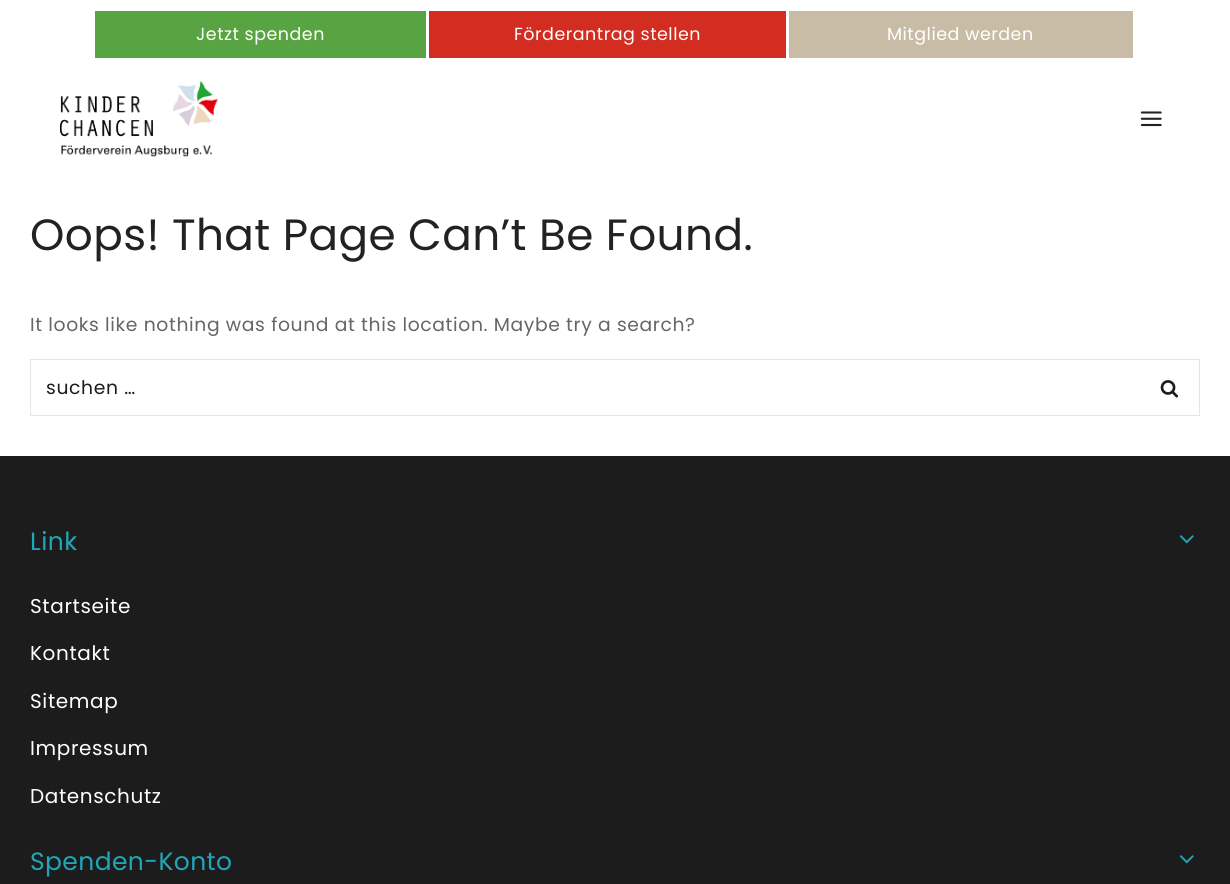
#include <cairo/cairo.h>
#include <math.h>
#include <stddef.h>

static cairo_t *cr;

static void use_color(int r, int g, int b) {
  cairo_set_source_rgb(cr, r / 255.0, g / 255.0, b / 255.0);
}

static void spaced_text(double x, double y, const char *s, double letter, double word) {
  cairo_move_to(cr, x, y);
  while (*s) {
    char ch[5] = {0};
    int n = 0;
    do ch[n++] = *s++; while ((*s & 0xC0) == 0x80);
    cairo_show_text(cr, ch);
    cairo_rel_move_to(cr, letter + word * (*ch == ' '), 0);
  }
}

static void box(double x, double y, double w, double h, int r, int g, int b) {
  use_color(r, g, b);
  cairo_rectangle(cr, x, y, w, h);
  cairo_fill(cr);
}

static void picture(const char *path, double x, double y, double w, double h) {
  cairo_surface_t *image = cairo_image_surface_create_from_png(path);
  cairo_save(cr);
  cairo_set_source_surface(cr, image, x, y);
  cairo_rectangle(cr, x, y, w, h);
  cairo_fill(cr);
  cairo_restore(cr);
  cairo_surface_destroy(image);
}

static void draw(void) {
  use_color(255, 255, 255);
  cairo_paint(cr);
  box(95, 11, 331, 47, 88, 163, 66);
  box(429, 11, 357, 47, 211, 44, 32);
  box(789, 11, 344, 47, 201, 188, 167);
  picture("img_01.png", 60, 81, 158, 76);
  picture("img_02.png", 1140, 111, 22, 16);
  cairo_rectangle(cr, 30.5, 359.5, 1169, 56);
  use_color(229, 229, 229);
  cairo_set_line_width(cr, 1);
  cairo_stroke(cr);
  picture("img_03.png", 1160, 380, 19, 18);
  box(0, 456, 1230, 428, 28, 28, 28);
  picture("img_04.png", 1179, 535, 15, 9);
  picture("img_04.png", 1179, 855, 15, 9);
  cairo_select_font_face(cr, "Poppins", CAIRO_FONT_SLANT_NORMAL, CAIRO_FONT_WEIGHT_NORMAL);
  cairo_set_font_size(cr, 17.5);
  use_color(255, 255, 255);
  spaced_text(196, 40, "Jetzt spenden", 0.5, 0);
  spaced_text(514, 40, "Förderantrag stellen", 0.5, 0);
  spaced_text(887, 40, "Mitglied werden", 0.5, 0);
  cairo_set_font_size(cr, 43.75);
  use_color(34, 34, 34);
  spaced_text(30, 250, "Oops! That Page Can’t Be Found.", 0.4, 0);
  cairo_set_font_size(cr, 18.75);
  use_color(102, 102, 102);
  spaced_text(30, 331, "It looks like nothing was found at this location. Maybe try a search?", 0.62, 0);
  use_color(28, 28, 28);
  spaced_text(46, 394, "suchen …", 0.62, 0);
  cairo_set_font_size(cr, 25);
  use_color(31, 167, 185);
  spaced_text(30, 550, "Link", 0.4, 0);
  cairo_set_font_size(cr, 20);
  use_color(255, 255, 255);
  spaced_text(30, 613, "Startseite", 0.62, 0);
  spaced_text(30, 660, "Kontakt", 0.62, 0);
  spaced_text(30, 708, "Sitemap", 0.62, 0);
  spaced_text(30, 755, "Impressum", 0.62, 0);
  spaced_text(30, 803, "Datenschutz", 0.62, 0);
  cairo_set_font_size(cr, 25);
  use_color(31, 167, 185);
  spaced_text(30, 870, "Spenden-Konto", 0.4, 0);
}

int main(void) {
  cairo_surface_t *surface = cairo_image_surface_create(CAIRO_FORMAT_RGB24, 1230, 884);
  cr = cairo_create(surface);
  cairo_font_options_t *options = cairo_font_options_create();
  cairo_font_options_set_hint_metrics(options, CAIRO_HINT_METRICS_OFF);
  cairo_font_options_set_hint_style(options, CAIRO_HINT_STYLE_NONE);
  cairo_set_font_options(cr, options);
  cairo_set_miter_limit(cr, 4);
  draw();
  cairo_surface_write_to_png(surface, "out.png");
  cairo_font_options_destroy(options);
  cairo_destroy(cr);
  cairo_surface_destroy(surface);
  return 0;
}
